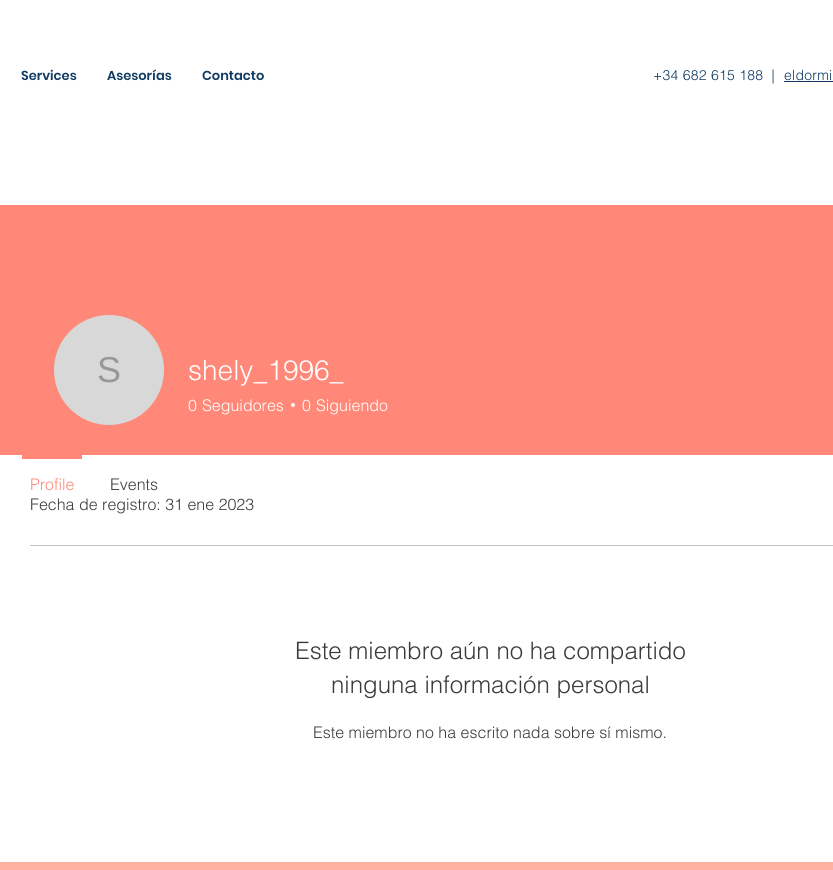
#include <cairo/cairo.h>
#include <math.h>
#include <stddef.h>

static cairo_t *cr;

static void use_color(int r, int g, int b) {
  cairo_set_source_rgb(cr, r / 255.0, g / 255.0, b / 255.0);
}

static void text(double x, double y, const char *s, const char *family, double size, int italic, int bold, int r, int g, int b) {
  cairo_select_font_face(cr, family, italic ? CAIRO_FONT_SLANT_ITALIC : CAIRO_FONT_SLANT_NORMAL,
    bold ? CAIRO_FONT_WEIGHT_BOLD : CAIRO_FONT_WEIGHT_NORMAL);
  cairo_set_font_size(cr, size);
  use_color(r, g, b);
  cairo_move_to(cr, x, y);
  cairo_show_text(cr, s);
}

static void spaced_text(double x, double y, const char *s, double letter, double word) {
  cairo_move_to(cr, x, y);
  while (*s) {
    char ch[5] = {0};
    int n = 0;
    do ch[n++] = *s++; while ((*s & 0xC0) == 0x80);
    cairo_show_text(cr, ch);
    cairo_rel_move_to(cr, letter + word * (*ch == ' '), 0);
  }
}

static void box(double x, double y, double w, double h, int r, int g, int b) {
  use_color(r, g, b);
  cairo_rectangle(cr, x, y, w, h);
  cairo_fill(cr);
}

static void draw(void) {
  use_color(255, 255, 255);
  cairo_paint(cr);
  box(784, 81, 49, 1, 15, 58, 97);
  box(0, 205, 833, 250, 255, 136, 120);
  use_color(216, 216, 216);
  cairo_arc(cr, 109, 370, 55, 0, 2 * M_PI);
  cairo_fill(cr);
  use_color(255, 255, 255);
  cairo_arc(cr, 293, 405, 2, 0, 2 * M_PI);
  cairo_fill(cr);
  box(22, 455, 60, 4, 255, 136, 120);
  box(30, 545, 803, 1, 196, 196, 196);
  box(0, 862, 833, 8, 255, 176, 161);
  text(21, 80, "Services", "Poppins SemiBold", 13, 0, 0, 15, 58, 97);
  text(107, 80, "Asesorías", "Poppins SemiBold", 13, 0, 0, 15, 58, 97);
  text(202, 80, "Contacto", "Poppins SemiBold", 13, 0, 0, 15, 58, 97);
  cairo_select_font_face(cr, "helvetica Light", CAIRO_FONT_SLANT_NORMAL, CAIRO_FONT_WEIGHT_NORMAL);
  cairo_set_font_size(cr, 14);
  spaced_text(653, 80, "+34 682 615 188  |", 0.25, 0);
  spaced_text(784, 80, "eldormi", 0.25, 0);
  text(97, 382, "S", "Liberation Sans", 36, 0, 0, 151, 151, 151);
  text(188, 380, "shely_1996_", "helvetica Light", 28, 0, 0, 255, 255, 255);
  text(188, 411, "0", "helvetica Light", 16, 0, 0, 255, 255, 255);
  text(202, 411, "Seguidores", "helvetica Light", 16, 0, 0, 255, 255, 255);
  text(302, 411, "0", "helvetica Light", 16, 0, 0, 255, 255, 255);
  text(316, 411, "Siguiendo", "helvetica Light", 16, 0, 0, 255, 255, 255);
  text(30, 490, "Profile", "helvetica Light", 16, 0, 0, 255, 136, 120);
  text(110, 490, "Events", "helvetica Light", 16, 0, 0, 59, 59, 59);
  text(30, 510, "Fecha de registro: 31 ene 2023", "helvetica Light", 16, 0, 0, 59, 59, 59);
  text(295, 659, "Este miembro aún no ha compartido", "helvetica Light", 24, 0, 0, 59, 59, 59);
  text(331, 693, "ninguna información personal", "helvetica Light", 24, 0, 0, 59, 59, 59);
  text(313, 738, "Este miembro no ha escrito nada sobre sí mismo.", "helvetica Light", 16, 0, 0, 59, 59, 59);
}

int main(void) {
  cairo_surface_t *surface = cairo_image_surface_create(CAIRO_FORMAT_RGB24, 833, 870);
  cr = cairo_create(surface);
  cairo_font_options_t *options = cairo_font_options_create();
  cairo_font_options_set_hint_metrics(options, CAIRO_HINT_METRICS_OFF);
  cairo_font_options_set_hint_style(options, CAIRO_HINT_STYLE_NONE);
  cairo_set_font_options(cr, options);
  cairo_set_miter_limit(cr, 4);
  draw();
  cairo_surface_write_to_png(surface, "out.png");
  cairo_font_options_destroy(options);
  cairo_destroy(cr);
  cairo_surface_destroy(surface);
  return 0;
}
